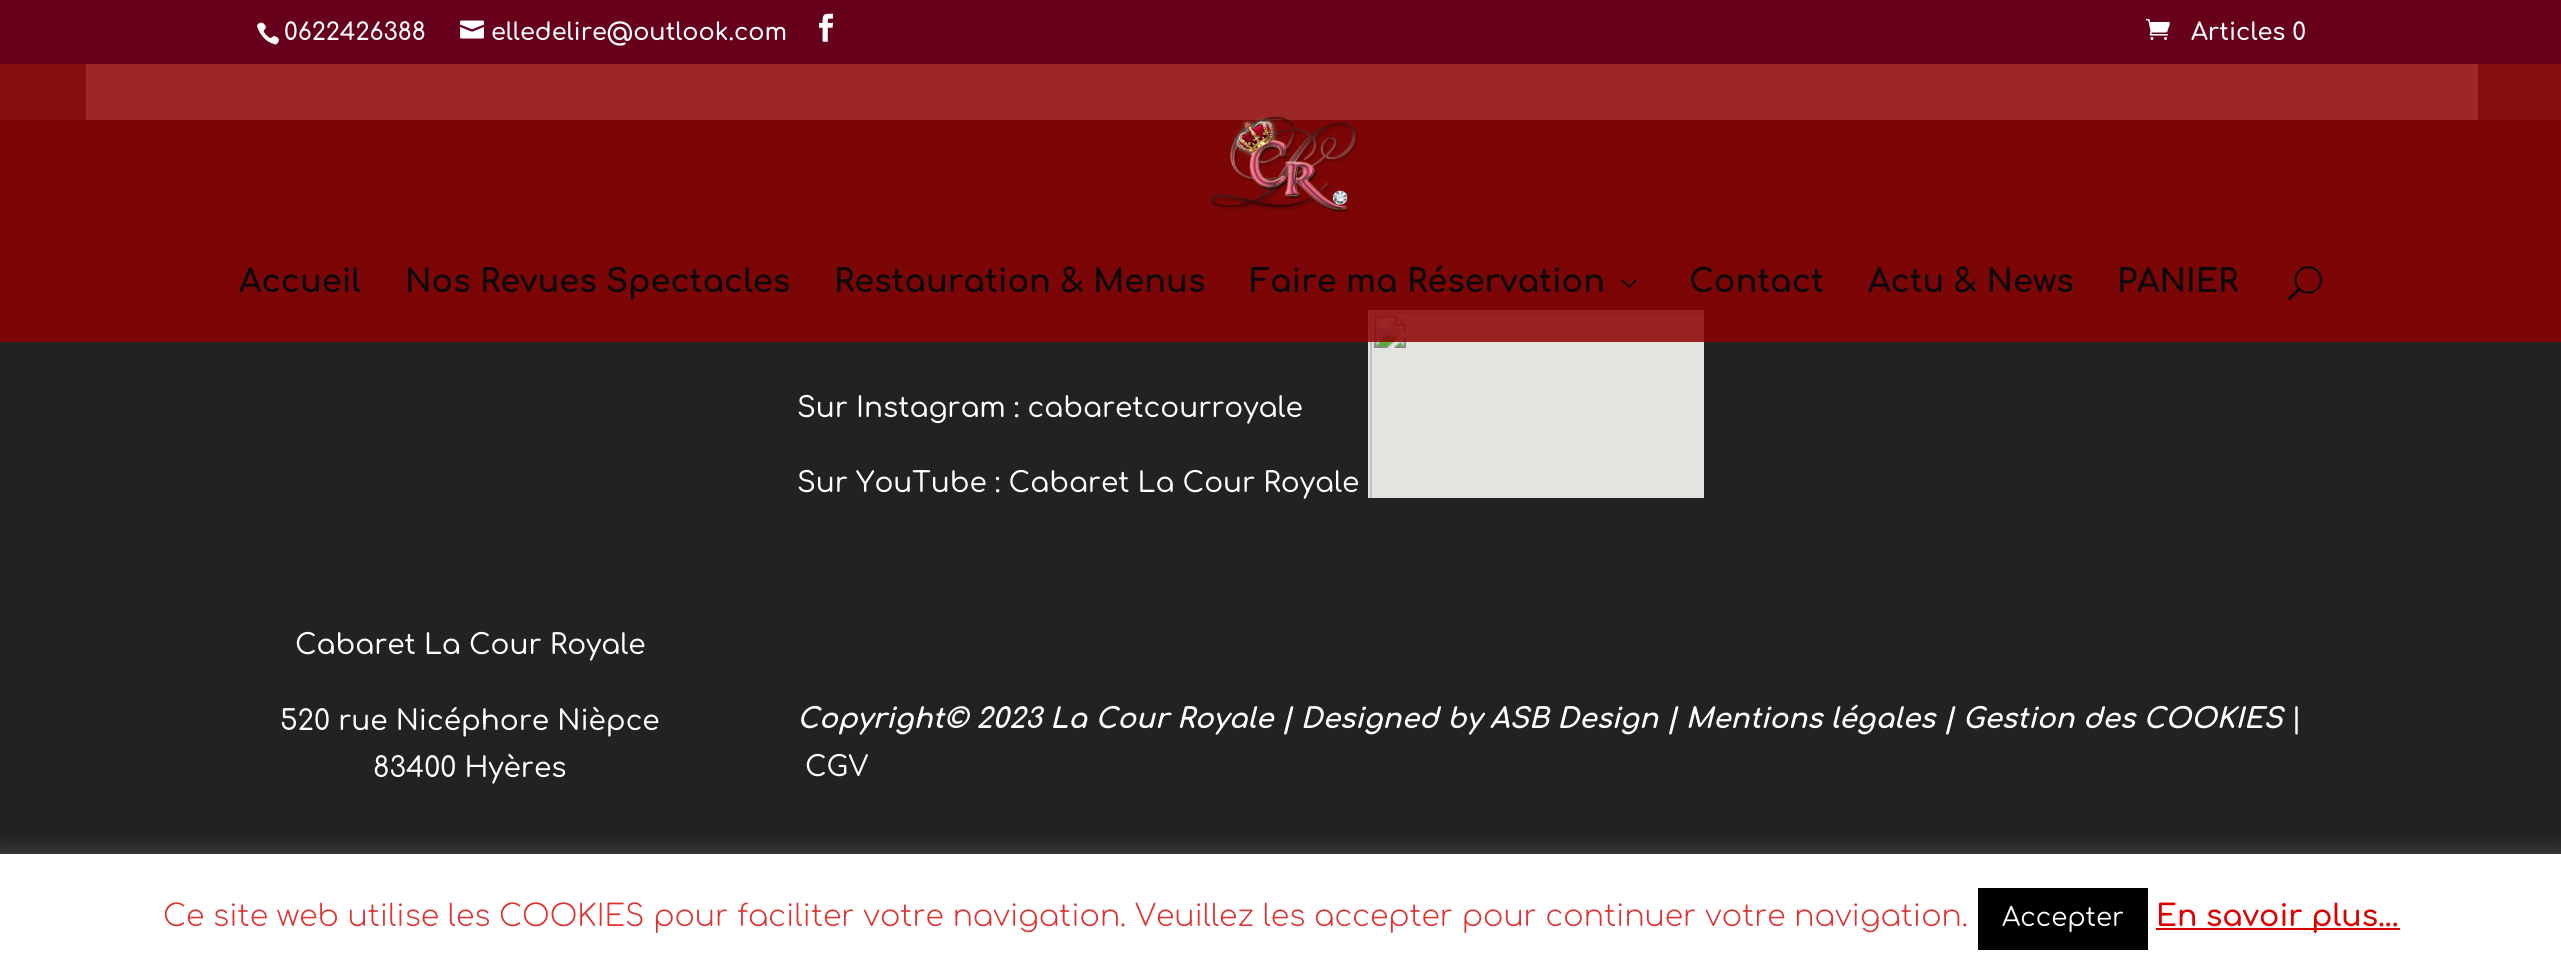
#include <cairo/cairo.h>
#include <math.h>
#include <stddef.h>

static cairo_t *cr;

static void use_color(int r, int g, int b) {
  cairo_set_source_rgb(cr, r / 255.0, g / 255.0, b / 255.0);
}

static void text(double x, double y, const char *s, const char *family, double size, int italic, int bold, int r, int g, int b) {
  cairo_select_font_face(cr, family, italic ? CAIRO_FONT_SLANT_ITALIC : CAIRO_FONT_SLANT_NORMAL,
    bold ? CAIRO_FONT_WEIGHT_BOLD : CAIRO_FONT_WEIGHT_NORMAL);
  cairo_set_font_size(cr, size);
  use_color(r, g, b);
  cairo_move_to(cr, x, y);
  cairo_show_text(cr, s);
}

static void box(double x, double y, double w, double h, int r, int g, int b) {
  use_color(r, g, b);
  cairo_rectangle(cr, x, y, w, h);
  cairo_fill(cr);
}

static void round_rect(double x, double y, double w, double h, double r) {
  cairo_new_sub_path(cr);
  cairo_arc(cr, x + w - r, y + h - r, r, 0, M_PI / 2);
  cairo_arc(cr, x + r, y + h - r, r, M_PI / 2, M_PI);
  cairo_arc(cr, x + r, y + r, r, M_PI, 1.5 * M_PI);
  cairo_arc(cr, x + w - r, y + r, r, 1.5 * M_PI, 2 * M_PI);
  cairo_close_path(cr);
}

static void shadow(double x, double y, double w, double h, double r, double blur, double alpha) {
  cairo_push_group_with_content(cr, CAIRO_CONTENT_ALPHA);
  cairo_set_operator(cr, CAIRO_OPERATOR_SOURCE);
  for (int i = 15; i >= -15 && fmin(w, h) + blur * i / 3 > 0; i -= 2) {
    double e = blur * i / 6;
    cairo_set_source_rgba(cr, 0, 0, 0, alpha * erfc((i - 1) / 8.5) / 2);
    round_rect(x - e, y - e, w + 2 * e, h + 2 * e, fmax(0, fmin(r + e + blur * .6, fmin(w, h) / 2 + e)));
    cairo_fill(cr);
  }
  cairo_pattern_t *soft = cairo_pop_group(cr);
  cairo_mask(cr, soft);
  cairo_pattern_destroy(soft);
}

static void picture(const char *path, double x, double y, double w, double h) {
  cairo_surface_t *image = cairo_image_surface_create_from_png(path);
  cairo_save(cr);
  cairo_set_source_surface(cr, image, x, y);
  cairo_rectangle(cr, x, y, w, h);
  cairo_fill(cr);
  cairo_restore(cr);
  cairo_surface_destroy(image);
}

static void draw(void) {
  use_color(91, 91, 91);
  cairo_paint(cr);
  box(0, 0, 2561, 64, 102, 0, 27);
  picture("img_01.png", 257, 22, 22, 23);
  picture("img_02.png", 460, 20, 24, 19);
  picture("img_03.png", 819, 13, 15, 29);
  picture("img_04.png", 2146, 19, 24, 21);
  box(86, 64, 2392, 56, 255, 255, 255);
  box(0, 120, 2561, 734, 34, 34, 34);
  picture("img_08.png", 1368, 310, 336, 188);
  cairo_set_source_rgba(cr, 0.549, 0, 0, 0.85);
  cairo_rectangle(cr, 0, 64, 2561, 278);
  cairo_fill(cr);
  picture("img_05.png", 1210, 116, 149, 97);
  picture("img_06.png", 1621, 279, 16, 9);
  picture("img_07.png", 2287, 266, 35, 35);
  use_color(172, 171, 171);
  shadow(0, 852, 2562, 120, 0, 10, 0.3);
  box(0, 854, 2561, 119, 255, 255, 255);
  box(1978, 888, 170, 62, 0, 0, 0);
  box(2156, 928, 244, 2, 221, 0, 0);
  text(284, 40, "0622426388", "Comfortaa SemiBold", 24, 0, 0, 255, 255, 255);
  text(491, 40, "elledelire@outlook.com", "Comfortaa SemiBold", 24, 0, 0, 255, 255, 255);
  text(2191, 40, "Articles 0", "Comfortaa SemiBold", 24, 0, 0, 255, 255, 255);
  text(239, 292, "Accueil", "Comfortaa", 32, 0, 1, 10, 10, 10);
  text(405, 292, "Nos Revues Spectacles", "Comfortaa", 32, 0, 1, 10, 10, 10);
  text(834, 292, "Restauration & Menus", "Comfortaa", 32, 0, 1, 10, 10, 10);
  text(1250, 292, "Faire ma Réservation", "Comfortaa", 32, 0, 1, 10, 10, 10);
  text(1689, 292, "Contact", "Comfortaa", 32, 0, 1, 10, 10, 10);
  text(1868, 292, "Actu & News", "Comfortaa", 32, 0, 1, 10, 10, 10);
  text(2117, 292, "PANIER", "Comfortaa", 32, 0, 1, 10, 10, 10);
  text(295, 654, "Cabaret La Cour Royale", "Comfortaa Medium", 28, 0, 0, 255, 255, 255);
  text(280, 730, "520 rue Nicéphore Nièpce", "Comfortaa Medium", 28, 0, 0, 255, 255, 255);
  text(373, 777, "83400 Hyères", "Comfortaa Medium", 28, 0, 0, 255, 255, 255);
  text(797, 417, "Sur Instagram : cabaretcourroyale", "Comfortaa Medium", 28, 0, 0, 255, 255, 255);
  text(797, 492, "Sur YouTube : Cabaret La Cour Royale", "Comfortaa Medium", 28, 0, 0, 255, 255, 255);
  text(797, 728, "Copyright© 2023 La Cour Royale | Designed by ASB Design | Mentions légales | Gestion des COOKIES", "Comfortaa", 28, 1, 1, 255, 255, 255);
  text(2291, 728, "|", "Comfortaa Medium", 28, 0, 0, 255, 255, 255);
  text(805, 776, "CGV", "Comfortaa Medium", 28, 0, 0, 255, 255, 255);
  text(163, 926, "Ce site web utilise les COOKIES pour faciliter votre navigation. Veuillez les accepter pour continuer votre navigation.", "Comfortaa Light", 30, 0, 0, 221, 51, 51);
  text(2002, 926, "Accepter", "Comfortaa", 26, 0, 0, 255, 255, 255);
  text(2156, 926, "En savoir plus...", "Comfortaa SemiBold", 30, 0, 0, 221, 0, 0);
}

int main(void) {
  cairo_surface_t *surface = cairo_image_surface_create(CAIRO_FORMAT_RGB24, 2561, 973);
  cr = cairo_create(surface);
  cairo_font_options_t *options = cairo_font_options_create();
  cairo_font_options_set_hint_metrics(options, CAIRO_HINT_METRICS_OFF);
  cairo_font_options_set_hint_style(options, CAIRO_HINT_STYLE_NONE);
  cairo_set_font_options(cr, options);
  cairo_set_miter_limit(cr, 4);
  draw();
  cairo_surface_write_to_png(surface, "out.png");
  cairo_font_options_destroy(options);
  cairo_destroy(cr);
  cairo_surface_destroy(surface);
  return 0;
}
